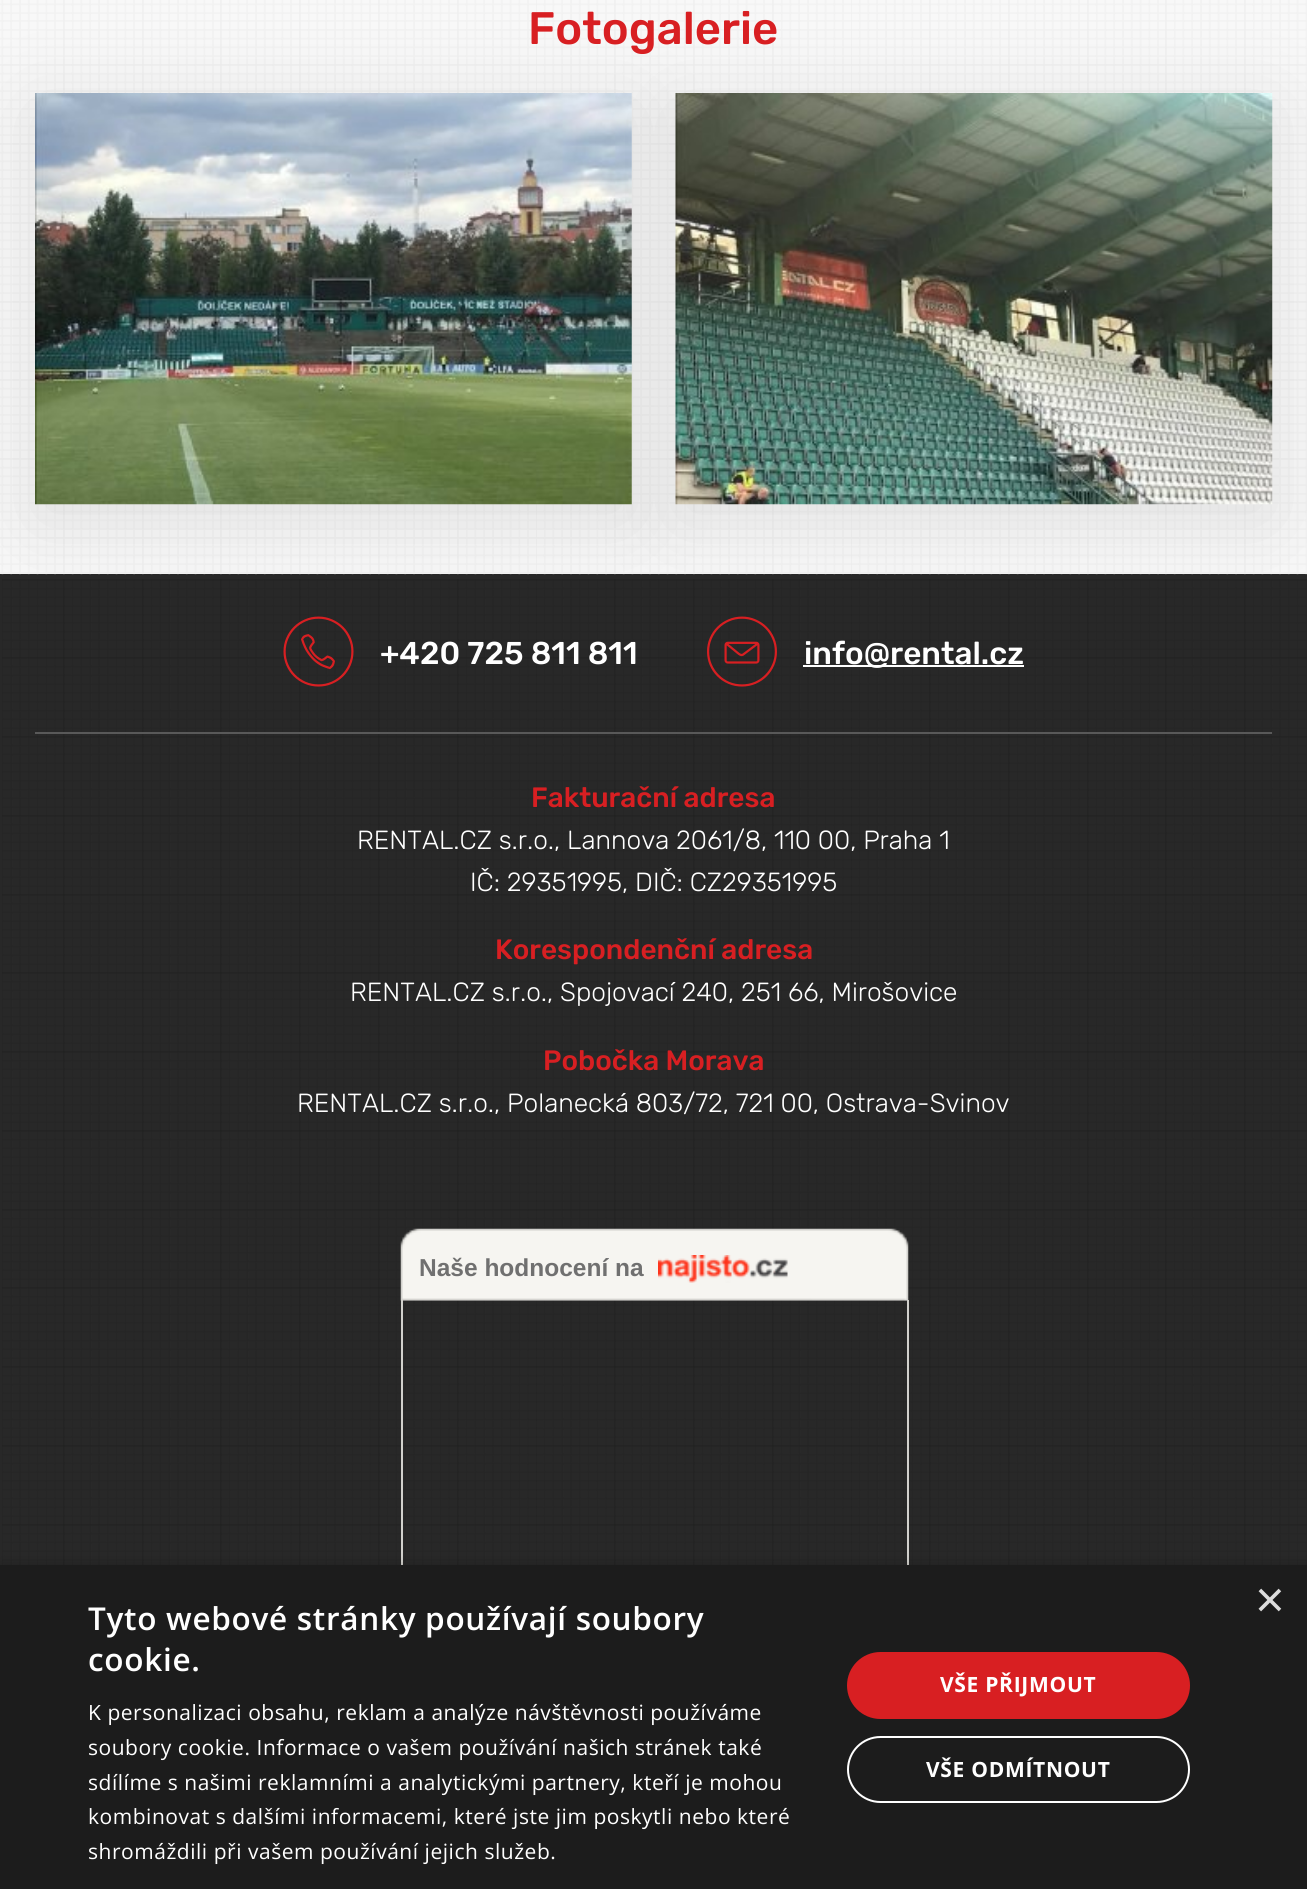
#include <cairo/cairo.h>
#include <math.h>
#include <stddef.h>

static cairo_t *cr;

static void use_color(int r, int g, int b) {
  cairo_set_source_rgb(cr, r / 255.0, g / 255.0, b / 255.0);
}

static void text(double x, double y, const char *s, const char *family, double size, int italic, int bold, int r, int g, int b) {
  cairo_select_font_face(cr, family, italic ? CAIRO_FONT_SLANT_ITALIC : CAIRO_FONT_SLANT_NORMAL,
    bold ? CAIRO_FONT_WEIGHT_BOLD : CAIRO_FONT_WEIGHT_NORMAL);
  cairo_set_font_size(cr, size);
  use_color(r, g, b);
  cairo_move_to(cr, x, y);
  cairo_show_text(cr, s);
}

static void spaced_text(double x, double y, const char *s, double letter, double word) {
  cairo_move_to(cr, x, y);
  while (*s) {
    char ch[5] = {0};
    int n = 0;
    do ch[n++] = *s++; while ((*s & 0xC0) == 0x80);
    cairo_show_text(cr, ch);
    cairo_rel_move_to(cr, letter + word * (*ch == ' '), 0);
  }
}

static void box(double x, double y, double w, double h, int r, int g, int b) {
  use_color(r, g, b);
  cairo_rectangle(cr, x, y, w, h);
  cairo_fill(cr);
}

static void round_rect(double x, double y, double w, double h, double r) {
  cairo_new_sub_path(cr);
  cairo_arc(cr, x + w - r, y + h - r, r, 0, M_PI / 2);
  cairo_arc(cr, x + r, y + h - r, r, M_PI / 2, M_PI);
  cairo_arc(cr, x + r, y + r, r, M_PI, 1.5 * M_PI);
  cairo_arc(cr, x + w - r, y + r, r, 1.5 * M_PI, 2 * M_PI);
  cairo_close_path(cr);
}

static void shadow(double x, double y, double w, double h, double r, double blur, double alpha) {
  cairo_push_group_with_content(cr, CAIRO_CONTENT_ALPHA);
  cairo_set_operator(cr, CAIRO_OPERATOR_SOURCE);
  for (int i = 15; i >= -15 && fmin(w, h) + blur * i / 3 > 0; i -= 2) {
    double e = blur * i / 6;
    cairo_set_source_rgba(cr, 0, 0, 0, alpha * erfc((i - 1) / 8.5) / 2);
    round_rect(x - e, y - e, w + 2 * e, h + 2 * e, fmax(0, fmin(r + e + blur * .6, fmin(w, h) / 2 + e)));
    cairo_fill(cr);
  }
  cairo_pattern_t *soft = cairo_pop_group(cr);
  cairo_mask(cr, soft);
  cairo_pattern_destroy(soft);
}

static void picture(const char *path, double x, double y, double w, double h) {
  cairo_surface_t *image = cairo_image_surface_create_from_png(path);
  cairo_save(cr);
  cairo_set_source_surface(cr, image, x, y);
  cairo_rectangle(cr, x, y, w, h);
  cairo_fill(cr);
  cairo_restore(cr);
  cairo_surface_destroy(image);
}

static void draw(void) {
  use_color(40, 40, 40);
  cairo_paint(cr);
  box(0, 0, 1307, 574, 248, 248, 248);
  picture("img_01.png", 0, 0, 1307, 575);
  picture("img_04.png", 2, 579, 1305, 986);
  picture("img_05.png", 283, 616, 71, 71);
  picture("img_06.png", 707, 616, 70, 71);
  use_color(0, 0, 0);
  shadow(35, 110, 597, 412, 0, 44, 0.1);
  picture("img_02.png", 35, 93, 597, 412);
  shadow(676, 110, 596, 412, 0, 44, 0.1);
  picture("img_03.png", 675, 93, 598, 412);
  box(35, 732, 1237, 2, 89, 89, 89);
  box(803, 665, 221, 2, 255, 255, 255);
  picture("img_07.png", 400, 1228, 509, 73);
  picture("img_08.png", 658, 1255, 130, 28);
  box(401, 1300, 2, 265, 210, 209, 205);
  box(907, 1300, 2, 265, 210, 209, 205);
  use_color(0, 0, 0);
  shadow(2, 1568, 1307, 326, 0, 7, 0.35);
  box(0, 1565, 1307, 324, 28, 28, 28);
  use_color(216, 31, 34);
  round_rect(847, 1652, 343, 67, 33.5);
  cairo_fill(cr);
  round_rect(848, 1737, 341, 65, 32.5);
  use_color(255, 255, 255);
  cairo_stroke(cr);
  text(528, 44, "Fotogalerie", "Rubik Medium", 45.5, 0, 0, 216, 31, 34);
  text(380, 664, "+420 725 811 811", "Rubik Medium", 31.5, 0, 0, 255, 255, 255);
  text(804, 664, "info@rental.cz", "Rubik Medium", 31.5, 0, 0, 255, 255, 255);
  text(531, 807, "Fakturační adresa", "Rubik Medium", 28, 0, 0, 216, 31, 34);
  text(357, 849, "RENTAL.CZ s.r.o., Lannova 2061/8, 110 00, Praha 1", "Rubik Light", 26.25, 0, 0, 255, 255, 255);
  text(470, 891, "IČ: 29351995, DIČ: CZ29351995", "Rubik Light", 26.25, 0, 0, 255, 255, 255);
  text(495, 959, "Korespondenční adresa", "Rubik Medium", 28, 0, 0, 216, 31, 34);
  text(350, 1001, "RENTAL.CZ s.r.o., Spojovací 240, 251 66, Mirošovice", "Rubik Light", 26.25, 0, 0, 255, 255, 255);
  text(543, 1070, "Pobočka Morava", "Rubik Medium", 28, 0, 0, 216, 31, 34);
  text(297, 1112, "RENTAL.CZ s.r.o., Polanecká 803/72, 721 00, Ostrava-Svinov", "Rubik Light", 26.25, 0, 0, 255, 255, 255);
  text(419, 1276, "Naše hodnocení na", "Liberation Sans", 24.5, 0, 1, 112, 112, 112);
  text(1255, 1617, "×", "Liberation Sans", 51, 0, 0, 221, 221, 221);
  cairo_select_font_face(cr, "Open Sans SemiBold", CAIRO_FONT_SLANT_NORMAL, CAIRO_FONT_WEIGHT_NORMAL);
  cairo_set_font_size(cr, 31.5);
  use_color(255, 255, 255);
  spaced_text(88, 1630, "Tyto webové stránky používají soubory", 0.7, 0);
  spaced_text(88, 1671, "cookie.", 0.7, 0);
  cairo_select_font_face(cr, "Open Sans", CAIRO_FONT_SLANT_NORMAL, CAIRO_FONT_WEIGHT_NORMAL);
  cairo_set_font_size(cr, 21);
  spaced_text(88, 1720, "K personalizaci obsahu, reklam a analýze návštěvnosti používáme", 0.53, 0);
  spaced_text(88, 1755, "soubory cookie. Informace o vašem používání našich stránek také", 0.53, 0);
  spaced_text(88, 1790, "sdílíme s našimi reklamními a analytickými partnery, kteří je mohou", 0.53, 0);
  spaced_text(88, 1824, "kombinovat s dalšími informacemi, které jste jim poskytli nebo které", 0.53, 0);
  spaced_text(88, 1859, "shromáždili při vašem používání jejich služeb.", 0.53, 0);
  cairo_select_font_face(cr, "Open Sans", CAIRO_FONT_SLANT_NORMAL, CAIRO_FONT_WEIGHT_BOLD);
  spaced_text(940, 1692, "VŠE PŘIJMOUT", 0.7, 0);
  spaced_text(926, 1777, "VŠE ODMÍTNOUT", 0.7, 0);
}

int main(void) {
  cairo_surface_t *surface = cairo_image_surface_create(CAIRO_FORMAT_RGB24, 1307, 1889);
  cr = cairo_create(surface);
  cairo_font_options_t *options = cairo_font_options_create();
  cairo_font_options_set_hint_metrics(options, CAIRO_HINT_METRICS_OFF);
  cairo_font_options_set_hint_style(options, CAIRO_HINT_STYLE_NONE);
  cairo_set_font_options(cr, options);
  cairo_set_miter_limit(cr, 4);
  draw();
  cairo_surface_write_to_png(surface, "out.png");
  cairo_font_options_destroy(options);
  cairo_destroy(cr);
  cairo_surface_destroy(surface);
  return 0;
}
